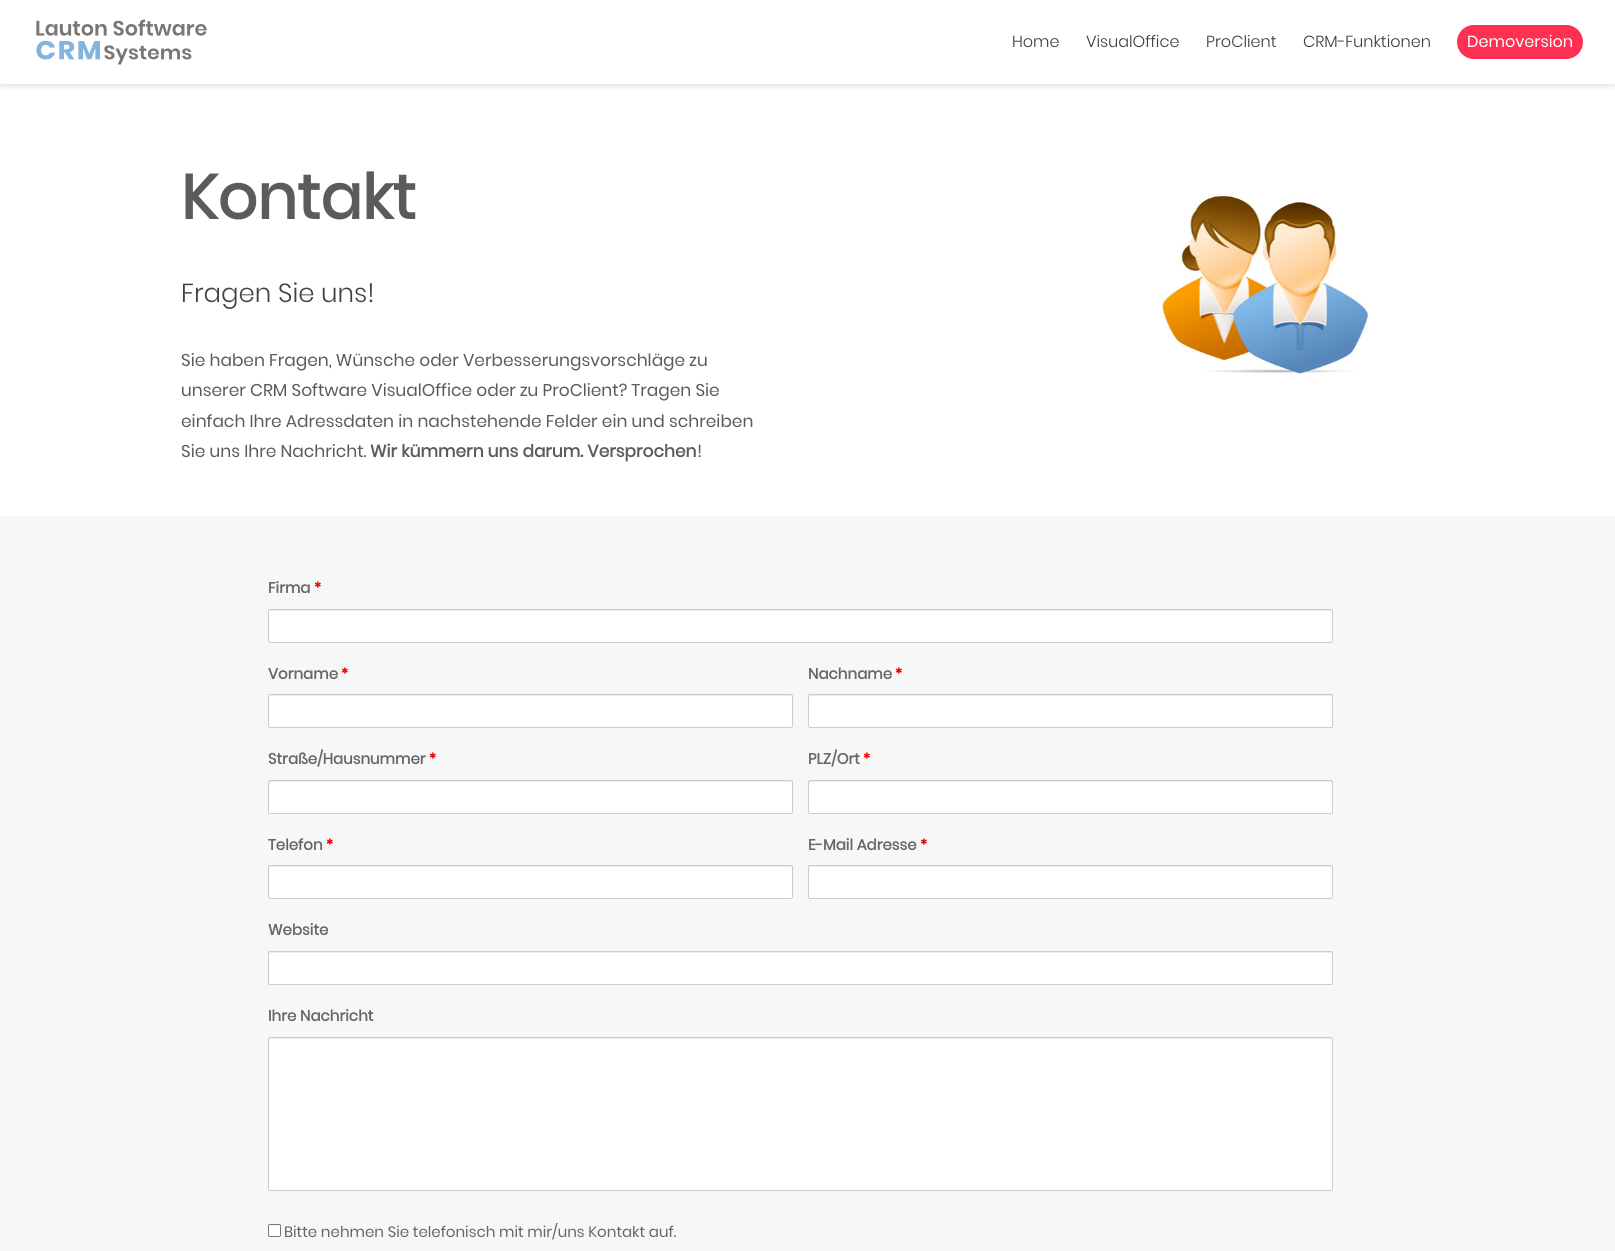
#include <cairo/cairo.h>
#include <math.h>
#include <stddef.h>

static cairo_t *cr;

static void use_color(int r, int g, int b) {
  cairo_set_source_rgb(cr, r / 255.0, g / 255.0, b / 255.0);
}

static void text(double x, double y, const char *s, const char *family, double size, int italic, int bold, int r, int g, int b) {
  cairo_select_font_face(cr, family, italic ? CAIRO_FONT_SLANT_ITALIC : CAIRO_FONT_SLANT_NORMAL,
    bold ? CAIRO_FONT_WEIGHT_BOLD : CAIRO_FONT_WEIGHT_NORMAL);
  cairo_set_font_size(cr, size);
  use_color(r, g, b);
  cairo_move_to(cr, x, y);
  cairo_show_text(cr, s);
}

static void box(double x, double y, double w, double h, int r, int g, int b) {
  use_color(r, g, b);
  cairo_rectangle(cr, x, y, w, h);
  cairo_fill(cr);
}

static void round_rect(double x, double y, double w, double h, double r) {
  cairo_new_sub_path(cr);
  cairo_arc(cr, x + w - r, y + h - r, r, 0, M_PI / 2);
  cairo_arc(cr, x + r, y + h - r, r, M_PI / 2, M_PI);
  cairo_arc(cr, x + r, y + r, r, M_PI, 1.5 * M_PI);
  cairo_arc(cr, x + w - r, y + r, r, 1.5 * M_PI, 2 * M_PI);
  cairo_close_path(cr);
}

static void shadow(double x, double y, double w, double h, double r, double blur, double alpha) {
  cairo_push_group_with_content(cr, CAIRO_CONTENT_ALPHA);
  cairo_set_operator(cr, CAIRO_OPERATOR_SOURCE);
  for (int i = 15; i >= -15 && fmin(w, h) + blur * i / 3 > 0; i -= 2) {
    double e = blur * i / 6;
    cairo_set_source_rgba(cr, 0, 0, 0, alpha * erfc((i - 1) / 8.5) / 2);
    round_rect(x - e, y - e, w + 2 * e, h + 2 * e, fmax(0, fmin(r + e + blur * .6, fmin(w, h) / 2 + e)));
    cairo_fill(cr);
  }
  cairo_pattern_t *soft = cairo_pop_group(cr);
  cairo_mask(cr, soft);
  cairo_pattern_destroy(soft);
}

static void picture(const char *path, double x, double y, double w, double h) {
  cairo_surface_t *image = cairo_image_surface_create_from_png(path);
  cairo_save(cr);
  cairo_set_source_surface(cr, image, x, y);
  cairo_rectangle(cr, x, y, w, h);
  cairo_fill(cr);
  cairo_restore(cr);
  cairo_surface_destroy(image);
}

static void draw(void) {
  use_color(255, 255, 255);
  cairo_paint(cr);
  cairo_save(cr);
  cairo_rectangle(cr, 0, 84, 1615, 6);
  cairo_clip(cr);
  use_color(0, 0, 0);
  shadow(0, 3, 1615, 84, 0, 3, 0.1);
  cairo_restore(cr);
  picture("img_01.png", 36, 19, 171, 46);
  use_color(255, 48, 82);
  round_rect(1457, 25, 126, 34, 17);
  cairo_fill(cr);
  picture("img_02.png", 1161, 193, 208, 182);
  box(0, 516, 1615, 735, 246, 248, 248);
  use_color(255, 255, 255);
  round_rect(268, 609, 1065, 34, 2);
  cairo_fill(cr);
  use_color(236, 236, 236);
  cairo_new_path(cr);
  cairo_move_to(cr, 270, 611);
  cairo_line_to(cr, 1331, 611);
  cairo_curve_to(cr, 1332, 611, 1332, 612, 1332, 613);
  cairo_line_to(cr, 1332, 610);
  cairo_line_to(cr, 1331, 610);
  cairo_line_to(cr, 270, 610);
  cairo_curve_to(cr, 269, 610, 269, 611, 269, 612);
  cairo_close_path(cr);
  cairo_fill(cr);
  round_rect(268.5, 609.5, 1064, 33, 1.5);
  use_color(204, 204, 204);
  cairo_set_line_width(cr, 1);
  cairo_stroke(cr);
  use_color(255, 255, 255);
  round_rect(268, 694, 525, 34, 2);
  cairo_fill(cr);
  use_color(236, 236, 236);
  cairo_new_path(cr);
  cairo_move_to(cr, 270, 696);
  cairo_line_to(cr, 791, 696);
  cairo_line_to(cr, 792, 697);
  cairo_line_to(cr, 792, 696);
  cairo_curve_to(cr, 792, 695, 792, 695, 791, 695);
  cairo_line_to(cr, 270, 695);
  cairo_curve_to(cr, 269, 695, 269, 695, 269, 696);
  cairo_line_to(cr, 269, 698);
  cairo_close_path(cr);
  cairo_fill(cr);
  round_rect(268.5, 694.5, 524, 33, 1.5);
  use_color(204, 204, 204);
  cairo_stroke(cr);
  use_color(255, 255, 255);
  round_rect(808, 694, 525, 34, 2);
  cairo_fill(cr);
  use_color(236, 236, 236);
  cairo_new_path(cr);
  cairo_move_to(cr, 810, 696);
  cairo_line_to(cr, 1331, 696);
  cairo_line_to(cr, 1332, 697);
  cairo_line_to(cr, 1332, 696);
  cairo_curve_to(cr, 1332, 695, 1332, 695, 1331, 695);
  cairo_line_to(cr, 810, 695);
  cairo_curve_to(cr, 809, 695, 809, 695, 809, 696);
  cairo_line_to(cr, 809, 698);
  cairo_close_path(cr);
  cairo_fill(cr);
  round_rect(808.5, 694.5, 524, 33, 1.5);
  use_color(204, 204, 204);
  cairo_stroke(cr);
  use_color(255, 255, 255);
  round_rect(268, 780, 525, 34, 2);
  cairo_fill(cr);
  use_color(236, 236, 236);
  cairo_new_path(cr);
  cairo_move_to(cr, 270, 782);
  cairo_line_to(cr, 791, 782);
  cairo_line_to(cr, 792, 783);
  cairo_line_to(cr, 792, 782);
  cairo_curve_to(cr, 792, 781, 792, 781, 791, 781);
  cairo_line_to(cr, 270, 781);
  cairo_curve_to(cr, 269, 781, 269, 781, 269, 782);
  cairo_line_to(cr, 269, 784);
  cairo_close_path(cr);
  cairo_fill(cr);
  round_rect(268.5, 780.5, 524, 33, 1.5);
  use_color(204, 204, 204);
  cairo_stroke(cr);
  use_color(255, 255, 255);
  round_rect(808, 780, 525, 34, 2);
  cairo_fill(cr);
  use_color(236, 236, 236);
  cairo_new_path(cr);
  cairo_move_to(cr, 810, 782);
  cairo_line_to(cr, 1331, 782);
  cairo_line_to(cr, 1332, 783);
  cairo_line_to(cr, 1332, 782);
  cairo_curve_to(cr, 1332, 781, 1332, 781, 1331, 781);
  cairo_line_to(cr, 810, 781);
  cairo_curve_to(cr, 809, 781, 809, 781, 809, 782);
  cairo_line_to(cr, 809, 784);
  cairo_close_path(cr);
  cairo_fill(cr);
  round_rect(808.5, 780.5, 524, 33, 1.5);
  use_color(204, 204, 204);
  cairo_stroke(cr);
  use_color(255, 255, 255);
  round_rect(268, 865, 525, 34, 2);
  cairo_fill(cr);
  use_color(236, 236, 236);
  cairo_new_path(cr);
  cairo_move_to(cr, 270, 867);
  cairo_line_to(cr, 791, 867);
  cairo_line_to(cr, 792, 868);
  cairo_line_to(cr, 792, 867);
  cairo_curve_to(cr, 792, 866, 792, 866, 791, 866);
  cairo_line_to(cr, 270, 866);
  cairo_curve_to(cr, 269, 866, 269, 866, 269, 867);
  cairo_line_to(cr, 269, 869);
  cairo_close_path(cr);
  cairo_fill(cr);
  round_rect(268.5, 865.5, 524, 33, 1.5);
  use_color(204, 204, 204);
  cairo_stroke(cr);
  use_color(255, 255, 255);
  round_rect(808, 865, 525, 34, 2);
  cairo_fill(cr);
  use_color(236, 236, 236);
  cairo_new_path(cr);
  cairo_move_to(cr, 810, 867);
  cairo_line_to(cr, 1331, 867);
  cairo_line_to(cr, 1332, 868);
  cairo_line_to(cr, 1332, 867);
  cairo_curve_to(cr, 1332, 866, 1332, 866, 1331, 866);
  cairo_line_to(cr, 810, 866);
  cairo_curve_to(cr, 809, 866, 809, 866, 809, 867);
  cairo_line_to(cr, 809, 869);
  cairo_close_path(cr);
  cairo_fill(cr);
  round_rect(808.5, 865.5, 524, 33, 1.5);
  use_color(204, 204, 204);
  cairo_stroke(cr);
  use_color(255, 255, 255);
  round_rect(268, 951, 1065, 34, 2);
  cairo_fill(cr);
  use_color(236, 236, 236);
  cairo_new_path(cr);
  cairo_move_to(cr, 270, 953);
  cairo_line_to(cr, 1331, 953);
  cairo_curve_to(cr, 1332, 953, 1332, 954, 1332, 955);
  cairo_line_to(cr, 1332, 952);
  cairo_line_to(cr, 1331, 952);
  cairo_line_to(cr, 270, 952);
  cairo_curve_to(cr, 269, 952, 269, 953, 269, 954);
  cairo_close_path(cr);
  cairo_fill(cr);
  round_rect(268.5, 951.5, 1064, 33, 1.5);
  use_color(204, 204, 204);
  cairo_stroke(cr);
  use_color(255, 255, 255);
  round_rect(268, 1037, 1065, 154, 2);
  cairo_fill(cr);
  use_color(236, 236, 236);
  cairo_new_path(cr);
  cairo_move_to(cr, 270, 1039);
  cairo_line_to(cr, 1331, 1039);
  cairo_curve_to(cr, 1332, 1039, 1332, 1039, 1332, 1040);
  cairo_line_to(cr, 1332, 1039);
  cairo_line_to(cr, 1331, 1038);
  cairo_line_to(cr, 270, 1038);
  cairo_curve_to(cr, 269, 1038, 269, 1039, 269, 1040);
  cairo_curve_to(cr, 269, 1039, 269, 1039, 270, 1039);
  cairo_close_path(cr);
  cairo_fill(cr);
  round_rect(268.5, 1037.5, 1064, 153, 1.5);
  use_color(204, 204, 204);
  cairo_stroke(cr);
  use_color(255, 255, 255);
  round_rect(268.5, 1224.5, 12, 12, 1.5);
  cairo_fill_preserve(cr);
  use_color(118, 118, 118);
  cairo_stroke(cr);
  text(1012, 47, "Home", "Poppins Light", 16, 0, 0, 59, 59, 59);
  text(1086, 47, "VisualOffice", "Poppins Light", 16, 0, 0, 59, 59, 59);
  text(1206, 47, "ProClient", "Poppins Light", 16, 0, 0, 59, 59, 59);
  text(1303, 47, "CRM-Funktionen", "Poppins Light", 16, 0, 0, 59, 59, 59);
  text(1467, 47, "Demoversion", "Poppins", 16, 0, 0, 255, 255, 255);
  text(181, 219, "Kontakt", "Poppins", 62, 0, 1, 91, 91, 91);
  text(181, 302, "Fragen Sie uns!", "Poppins Light", 26, 0, 0, 66, 66, 66);
  text(181, 366, "Sie haben Fragen, Wünsche oder Verbesserungsvorschläge zu", "Poppins", 17, 0, 0, 91, 91, 91);
  text(181, 396, "unserer CRM Software VisualOffice oder zu ProClient? Tragen Sie", "Poppins", 17, 0, 0, 91, 91, 91);
  text(181, 427, "einfach Ihre Adressdaten in nachstehende Felder ein und schreiben", "Poppins", 17, 0, 0, 91, 91, 91);
  text(181, 457, "Sie uns Ihre Nachricht.", "Poppins", 17, 0, 0, 91, 91, 91);
  text(370, 457, "Wir kümmern uns darum. Versprochen", "Poppins", 17, 0, 1, 91, 91, 91);
  text(697, 457, "!", "Poppins", 17, 0, 0, 91, 91, 91);
  text(268, 593, "Firma", "Poppins", 15, 0, 1, 102, 102, 102);
  text(314, 593, "*", "Poppins", 15, 0, 1, 238, 0, 0);
  text(268, 679, "Vorname", "Poppins", 15, 0, 1, 102, 102, 102);
  text(341, 679, "*", "Poppins", 15, 0, 1, 238, 0, 0);
  text(808, 679, "Nachname", "Poppins", 15, 0, 1, 102, 102, 102);
  text(895, 679, "*", "Poppins", 15, 0, 1, 238, 0, 0);
  text(268, 764, "Straße/Hausnummer", "Poppins", 15, 0, 1, 102, 102, 102);
  text(429, 764, "*", "Poppins", 15, 0, 1, 238, 0, 0);
  text(808, 764, "PLZ/Ort", "Poppins", 15, 0, 1, 102, 102, 102);
  text(863, 764, "*", "Poppins", 15, 0, 1, 238, 0, 0);
  text(268, 850, "Telefon", "Poppins", 15, 0, 1, 102, 102, 102);
  text(326, 850, "*", "Poppins", 15, 0, 1, 238, 0, 0);
  text(808, 850, "E-Mail Adresse", "Poppins", 15, 0, 1, 102, 102, 102);
  text(920, 850, "*", "Poppins", 15, 0, 1, 238, 0, 0);
  text(268, 935, "Website", "Poppins", 15, 0, 1, 102, 102, 102);
  text(268, 1021, "Ihre Nachricht", "Poppins", 15, 0, 1, 102, 102, 102);
  text(284, 1237, "Bitte nehmen Sie telefonisch mit mir/uns Kontakt auf.", "Poppins", 15, 0, 0, 102, 102, 102);
}

int main(void) {
  cairo_surface_t *surface = cairo_image_surface_create(CAIRO_FORMAT_RGB24, 1615, 1251);
  cr = cairo_create(surface);
  cairo_font_options_t *options = cairo_font_options_create();
  cairo_font_options_set_hint_metrics(options, CAIRO_HINT_METRICS_OFF);
  cairo_font_options_set_hint_style(options, CAIRO_HINT_STYLE_NONE);
  cairo_set_font_options(cr, options);
  cairo_set_miter_limit(cr, 4);
  draw();
  cairo_surface_write_to_png(surface, "out.png");
  cairo_font_options_destroy(options);
  cairo_destroy(cr);
  cairo_surface_destroy(surface);
  return 0;
}
